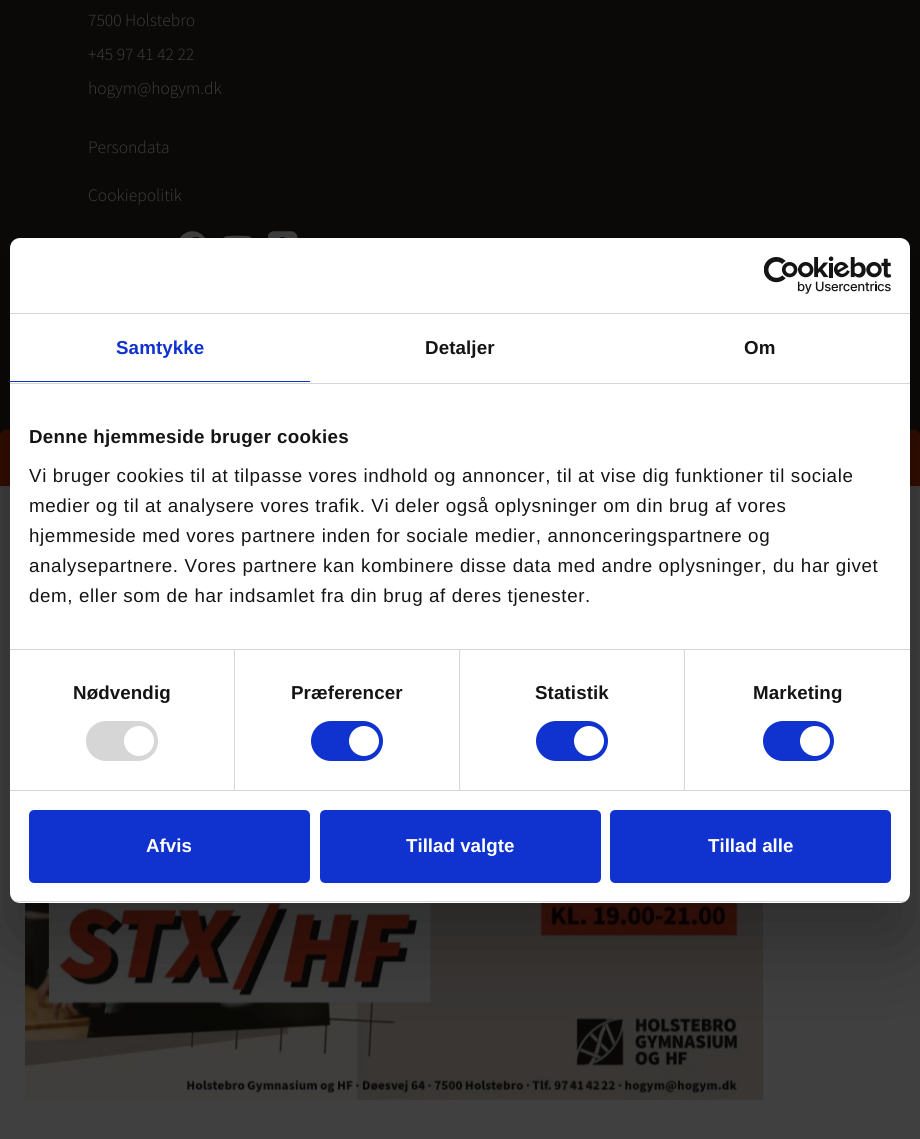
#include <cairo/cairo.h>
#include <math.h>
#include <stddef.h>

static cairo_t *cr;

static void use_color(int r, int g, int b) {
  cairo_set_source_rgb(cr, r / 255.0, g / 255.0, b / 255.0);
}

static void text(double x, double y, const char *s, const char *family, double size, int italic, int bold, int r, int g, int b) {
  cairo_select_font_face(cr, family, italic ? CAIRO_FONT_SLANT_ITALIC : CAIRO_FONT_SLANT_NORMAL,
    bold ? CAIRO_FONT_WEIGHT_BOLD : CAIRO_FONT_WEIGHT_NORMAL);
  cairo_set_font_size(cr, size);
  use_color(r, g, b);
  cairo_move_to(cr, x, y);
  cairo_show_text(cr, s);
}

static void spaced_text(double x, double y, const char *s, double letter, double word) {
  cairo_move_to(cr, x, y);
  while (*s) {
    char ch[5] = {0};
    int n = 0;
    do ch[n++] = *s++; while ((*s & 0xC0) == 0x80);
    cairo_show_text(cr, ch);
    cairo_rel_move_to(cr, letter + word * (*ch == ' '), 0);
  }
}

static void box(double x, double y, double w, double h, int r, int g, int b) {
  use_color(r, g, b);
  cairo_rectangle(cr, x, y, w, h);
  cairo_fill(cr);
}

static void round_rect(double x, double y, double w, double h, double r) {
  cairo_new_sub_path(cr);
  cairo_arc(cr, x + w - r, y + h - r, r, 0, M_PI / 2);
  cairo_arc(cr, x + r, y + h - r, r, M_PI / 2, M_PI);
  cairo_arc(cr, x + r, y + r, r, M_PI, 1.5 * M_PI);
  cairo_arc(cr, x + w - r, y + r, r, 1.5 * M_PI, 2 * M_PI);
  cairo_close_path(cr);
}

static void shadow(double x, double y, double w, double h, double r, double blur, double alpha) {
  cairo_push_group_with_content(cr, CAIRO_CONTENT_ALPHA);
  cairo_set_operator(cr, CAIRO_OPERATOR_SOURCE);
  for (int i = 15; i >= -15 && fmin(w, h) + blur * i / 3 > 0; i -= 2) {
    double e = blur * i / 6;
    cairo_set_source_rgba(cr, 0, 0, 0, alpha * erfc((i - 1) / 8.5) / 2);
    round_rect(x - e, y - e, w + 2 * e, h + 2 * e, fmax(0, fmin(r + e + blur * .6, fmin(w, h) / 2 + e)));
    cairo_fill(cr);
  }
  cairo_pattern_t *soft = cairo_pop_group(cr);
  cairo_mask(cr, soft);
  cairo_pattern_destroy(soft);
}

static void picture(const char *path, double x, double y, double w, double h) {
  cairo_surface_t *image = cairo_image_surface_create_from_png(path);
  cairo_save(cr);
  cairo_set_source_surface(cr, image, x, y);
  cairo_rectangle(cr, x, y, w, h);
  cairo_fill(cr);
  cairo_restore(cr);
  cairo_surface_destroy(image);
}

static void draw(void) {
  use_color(10, 9, 7);
  cairo_paint(cr);
  picture("img_01.png", 180, 231, 25, 7);
  picture("img_02.png", 223, 235, 29, 3);
  picture("img_03.png", 268, 231, 30, 7);
  use_color(51, 13, 0);
  cairo_new_path(cr);
  cairo_move_to(cr, 6, 430);
  cairo_line_to(cr, 914, 430);
  cairo_curve_to(cr, 917.5, 430, 920, 432.5, 920, 436);
  cairo_line_to(cr, 920, 486);
  cairo_line_to(cr, 0, 486);
  cairo_line_to(cr, 0, 436);
  cairo_curve_to(cr, 0, 432.5, 2.5, 430, 6, 430);
  cairo_close_path(cr);
  cairo_fill(cr);
  box(0, 486, 920, 653, 64, 64, 64);
  picture("img_05.png", 25, 903, 738, 197);
  use_color(0, 0, 0);
  shadow(10, 278, 900, 665, 10, 42.5, 0.3);
  use_color(255, 255, 255);
  round_rect(10, 238, 900, 665, 10);
  cairo_fill(cr);
  box(10, 313, 900, 1, 214, 214, 214);
  picture("img_04.png", 764, 256, 127, 38);
  box(10, 383, 900, 1, 214, 214, 214);
  box(10, 381, 300, 1, 16, 50, 207);
  box(10, 649, 900, 1, 214, 214, 214);
  box(10, 790, 900, 1, 214, 214, 214);
  box(234, 650, 1, 140, 214, 214, 214);
  round_rect(86, 721, 72, 40, 20);
  cairo_fill(cr);
  use_color(255, 255, 255);
  cairo_arc(cr, 139, 741, 15, 0, 2 * M_PI);
  cairo_fill(cr);
  box(459, 650, 1, 140, 214, 214, 214);
  use_color(16, 50, 207);
  round_rect(311, 721, 72, 40, 20);
  cairo_fill(cr);
  use_color(255, 255, 255);
  cairo_arc(cr, 364, 741, 15, 0, 2 * M_PI);
  cairo_fill(cr);
  box(684, 650, 1, 140, 214, 214, 214);
  use_color(16, 50, 207);
  round_rect(536, 721, 72, 40, 20);
  cairo_fill(cr);
  use_color(255, 255, 255);
  cairo_arc(cr, 589, 741, 15, 0, 2 * M_PI);
  cairo_fill(cr);
  use_color(16, 50, 207);
  round_rect(763, 721, 71, 40, 20);
  cairo_fill(cr);
  use_color(255, 255, 255);
  cairo_arc(cr, 815, 741, 15, 0, 2 * M_PI);
  cairo_fill(cr);
  cairo_save(cr);
  round_rect(10, 238, 900, 665, 10);
  cairo_clip(cr);
  box(10, 901, 900, 1, 214, 214, 214);
  cairo_restore(cr);
  use_color(16, 50, 207);
  round_rect(30.5, 811.5, 278, 70, 3.5);
  cairo_fill_preserve(cr);
  cairo_set_line_width(cr, 3);
  cairo_stroke(cr);
  round_rect(321.5, 811.5, 278, 70, 3.5);
  cairo_fill_preserve(cr);
  cairo_stroke(cr);
  round_rect(611.5, 811.5, 278, 70, 3.5);
  cairo_fill_preserve(cr);
  cairo_stroke(cr);
  text(88, 26, "7500 Holstebro", "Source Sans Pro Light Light", 17.5, 0, 0, 64, 62, 60);
  text(88, 60, "+45 97 41 42 22", "Source Sans Pro Light Light", 17.5, 0, 0, 64, 62, 60);
  text(88, 94, "hogym@hogym.dk", "Source Sans Pro Light Light", 17.5, 0, 0, 64, 62, 60);
  text(88, 153, "Persondata", "Source Sans Pro Light Light", 17.5, 0, 0, 64, 62, 60);
  text(88, 201, "Cookiepolitik", "Source Sans Pro Light Light", 17.5, 0, 0, 64, 62, 60);
  cairo_select_font_face(cr, "Liberation Sans", CAIRO_FONT_SLANT_NORMAL, CAIRO_FONT_WEIGHT_BOLD);
  cairo_set_font_size(cr, 18.75);
  use_color(16, 50, 207);
  spaced_text(116, 354, "Samtykke", 0.1, 0);
  use_color(20, 20, 20);
  spaced_text(425, 354, "Detaljer", 0.1, 0);
  spaced_text(744, 354, "Om", 0.1, 0);
  spaced_text(29, 443, "Denne hjemmeside bruger cookies", 0.3, 0);
  cairo_select_font_face(cr, "Liberation Sans", CAIRO_FONT_SLANT_NORMAL, CAIRO_FONT_WEIGHT_NORMAL);
  spaced_text(29, 482, "Vi bruger cookies til at tilpasse vores indhold og annoncer, til at vise dig funktioner til sociale", 0.62, 0);
  spaced_text(29, 512, "medier og til at analysere vores trafik. Vi deler også oplysninger om din brug af vores", 0.62, 0);
  spaced_text(29, 542, "hjemmeside med vores partnere inden for sociale medier, annonceringspartnere og", 0.62, 0);
  spaced_text(29, 572, "analysepartnere. Vores partnere kan kombinere disse data med andre oplysninger, du har givet", 0.62, 0);
  spaced_text(29, 602, "dem, eller som de har indsamlet fra din brug af deres tjenester.", 0.62, 0);
  cairo_select_font_face(cr, "Liberation Sans", CAIRO_FONT_SLANT_NORMAL, CAIRO_FONT_WEIGHT_BOLD);
  spaced_text(73, 699, "Nødvendig", 0.1, 0);
  spaced_text(291, 699, "Præferencer", 0.1, 0);
  spaced_text(535, 699, "Statistik", 0.1, 0);
  spaced_text(753, 699, "Marketing", 0.1, 0);
  text(146, 852, "Afvis", "Liberation Sans", 18.75, 0, 1, 255, 255, 255);
  text(406, 852, "Tillad valgte", "Liberation Sans", 18.75, 0, 1, 255, 255, 255);
  text(708, 852, "Tillad alle", "Liberation Sans", 18.75, 0, 1, 255, 255, 255);
}

int main(void) {
  cairo_surface_t *surface = cairo_image_surface_create(CAIRO_FORMAT_RGB24, 920, 1139);
  cr = cairo_create(surface);
  cairo_font_options_t *options = cairo_font_options_create();
  cairo_font_options_set_hint_metrics(options, CAIRO_HINT_METRICS_OFF);
  cairo_font_options_set_hint_style(options, CAIRO_HINT_STYLE_NONE);
  cairo_set_font_options(cr, options);
  cairo_set_miter_limit(cr, 4);
  draw();
  cairo_surface_write_to_png(surface, "out.png");
  cairo_font_options_destroy(options);
  cairo_destroy(cr);
  cairo_surface_destroy(surface);
  return 0;
}
